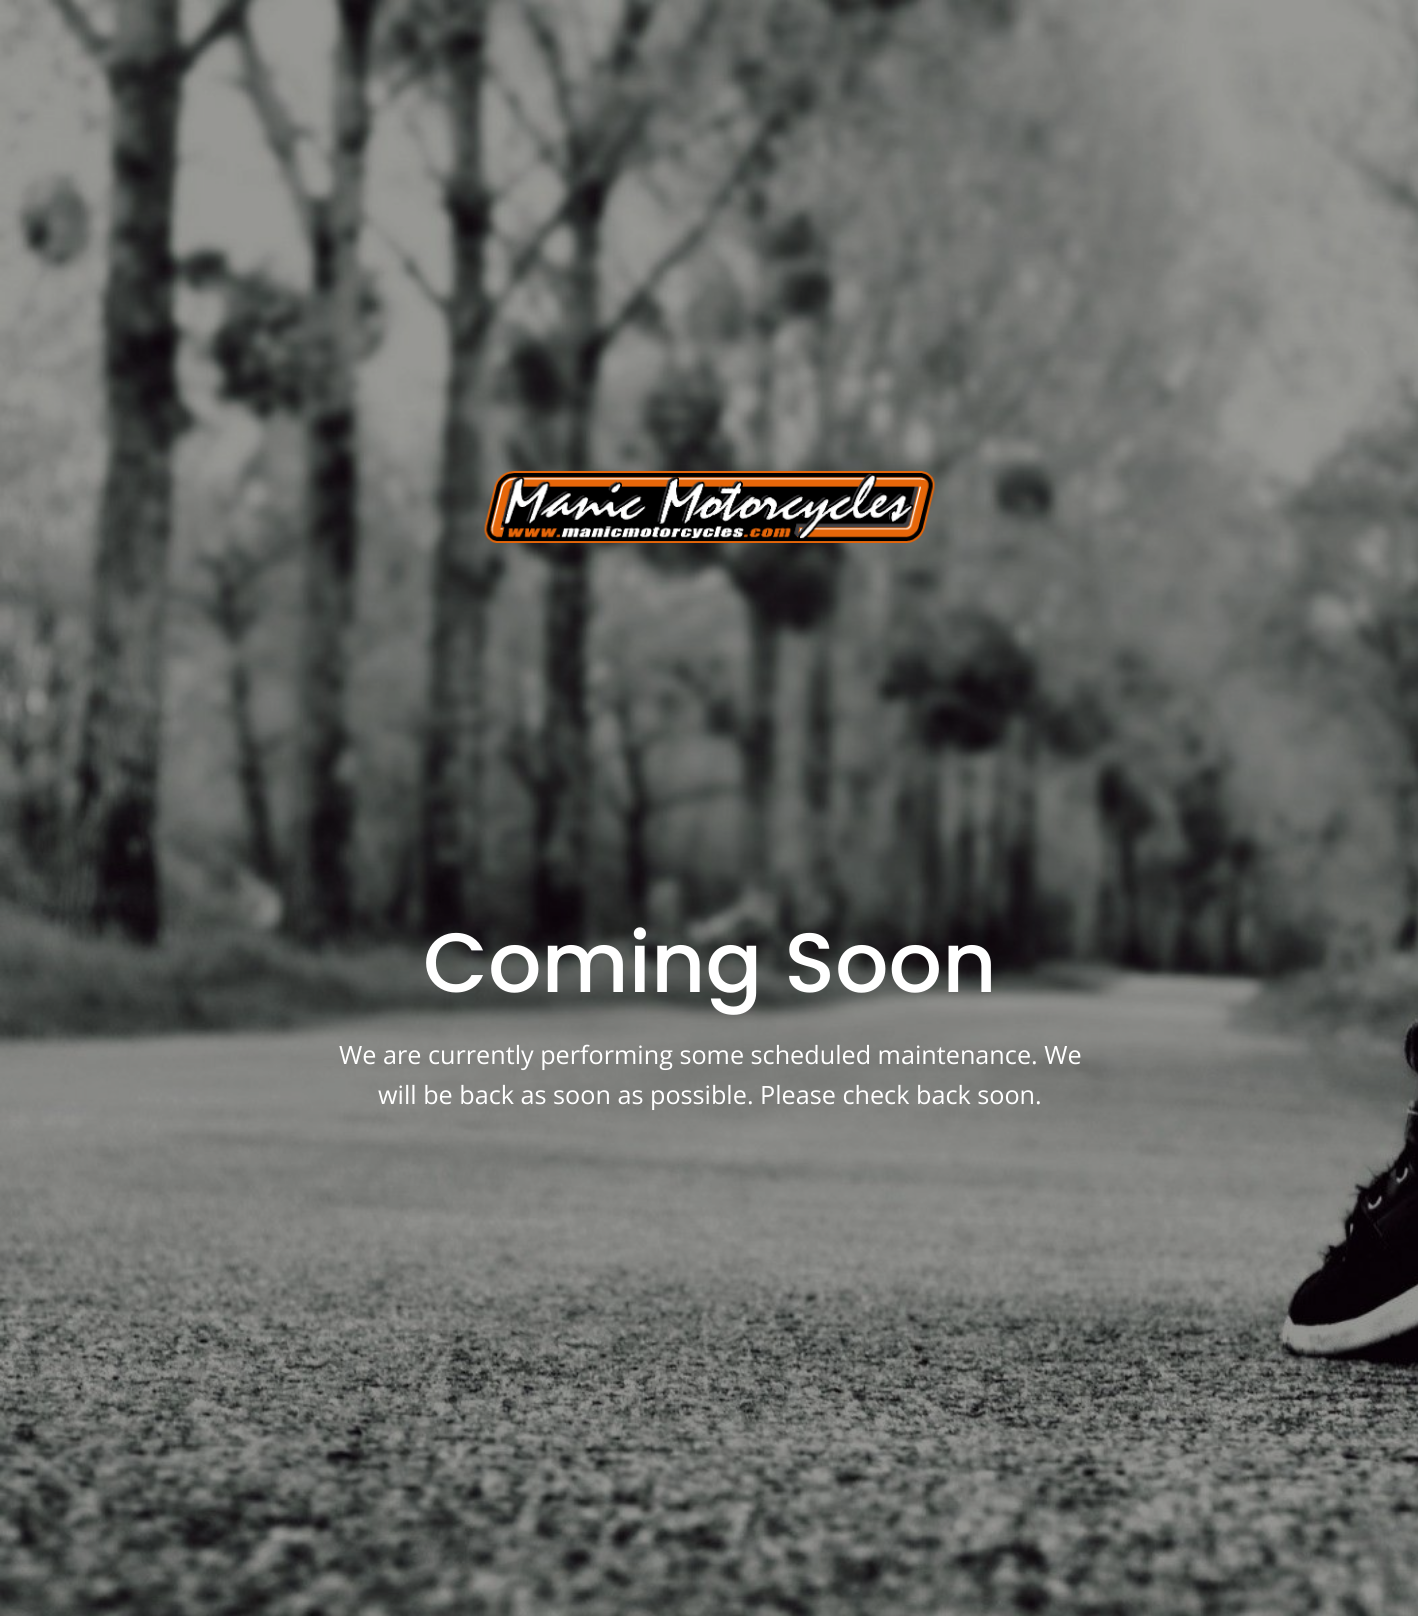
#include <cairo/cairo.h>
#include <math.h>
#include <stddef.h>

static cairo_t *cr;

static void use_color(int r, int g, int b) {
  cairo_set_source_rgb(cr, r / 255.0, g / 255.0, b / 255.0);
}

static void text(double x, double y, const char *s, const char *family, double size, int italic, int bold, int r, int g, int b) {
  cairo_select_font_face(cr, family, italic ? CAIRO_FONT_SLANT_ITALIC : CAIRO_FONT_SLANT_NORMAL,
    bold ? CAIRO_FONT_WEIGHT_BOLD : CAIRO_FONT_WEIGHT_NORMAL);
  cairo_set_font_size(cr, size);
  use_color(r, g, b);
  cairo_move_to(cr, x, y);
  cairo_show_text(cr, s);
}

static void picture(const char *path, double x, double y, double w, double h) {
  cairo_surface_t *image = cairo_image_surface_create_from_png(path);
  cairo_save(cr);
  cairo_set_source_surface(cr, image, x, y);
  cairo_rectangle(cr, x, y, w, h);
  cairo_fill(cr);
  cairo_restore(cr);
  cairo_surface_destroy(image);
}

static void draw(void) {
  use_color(255, 255, 255);
  cairo_paint(cr);
  picture("img_01.png", 0, 0, 1418, 1616);
  picture("img_02.png", 484, 471, 451, 72);
  text(423, 992, "Coming Soon", "Poppins Medium", 84, 0, 0, 255, 255, 255);
  text(339, 1064, "We are currently performing some scheduled maintenance. We", "Open Sans", 25.2, 0, 0, 255, 255, 255);
  text(378, 1104, "will be back as soon as possible. Please check back soon.", "Open Sans", 25.2, 0, 0, 255, 255, 255);
}

int main(void) {
  cairo_surface_t *surface = cairo_image_surface_create(CAIRO_FORMAT_RGB24, 1418, 1616);
  cr = cairo_create(surface);
  cairo_font_options_t *options = cairo_font_options_create();
  cairo_font_options_set_hint_metrics(options, CAIRO_HINT_METRICS_OFF);
  cairo_font_options_set_hint_style(options, CAIRO_HINT_STYLE_NONE);
  cairo_set_font_options(cr, options);
  cairo_set_miter_limit(cr, 4);
  draw();
  cairo_surface_write_to_png(surface, "out.png");
  cairo_font_options_destroy(options);
  cairo_destroy(cr);
  cairo_surface_destroy(surface);
  return 0;
}
